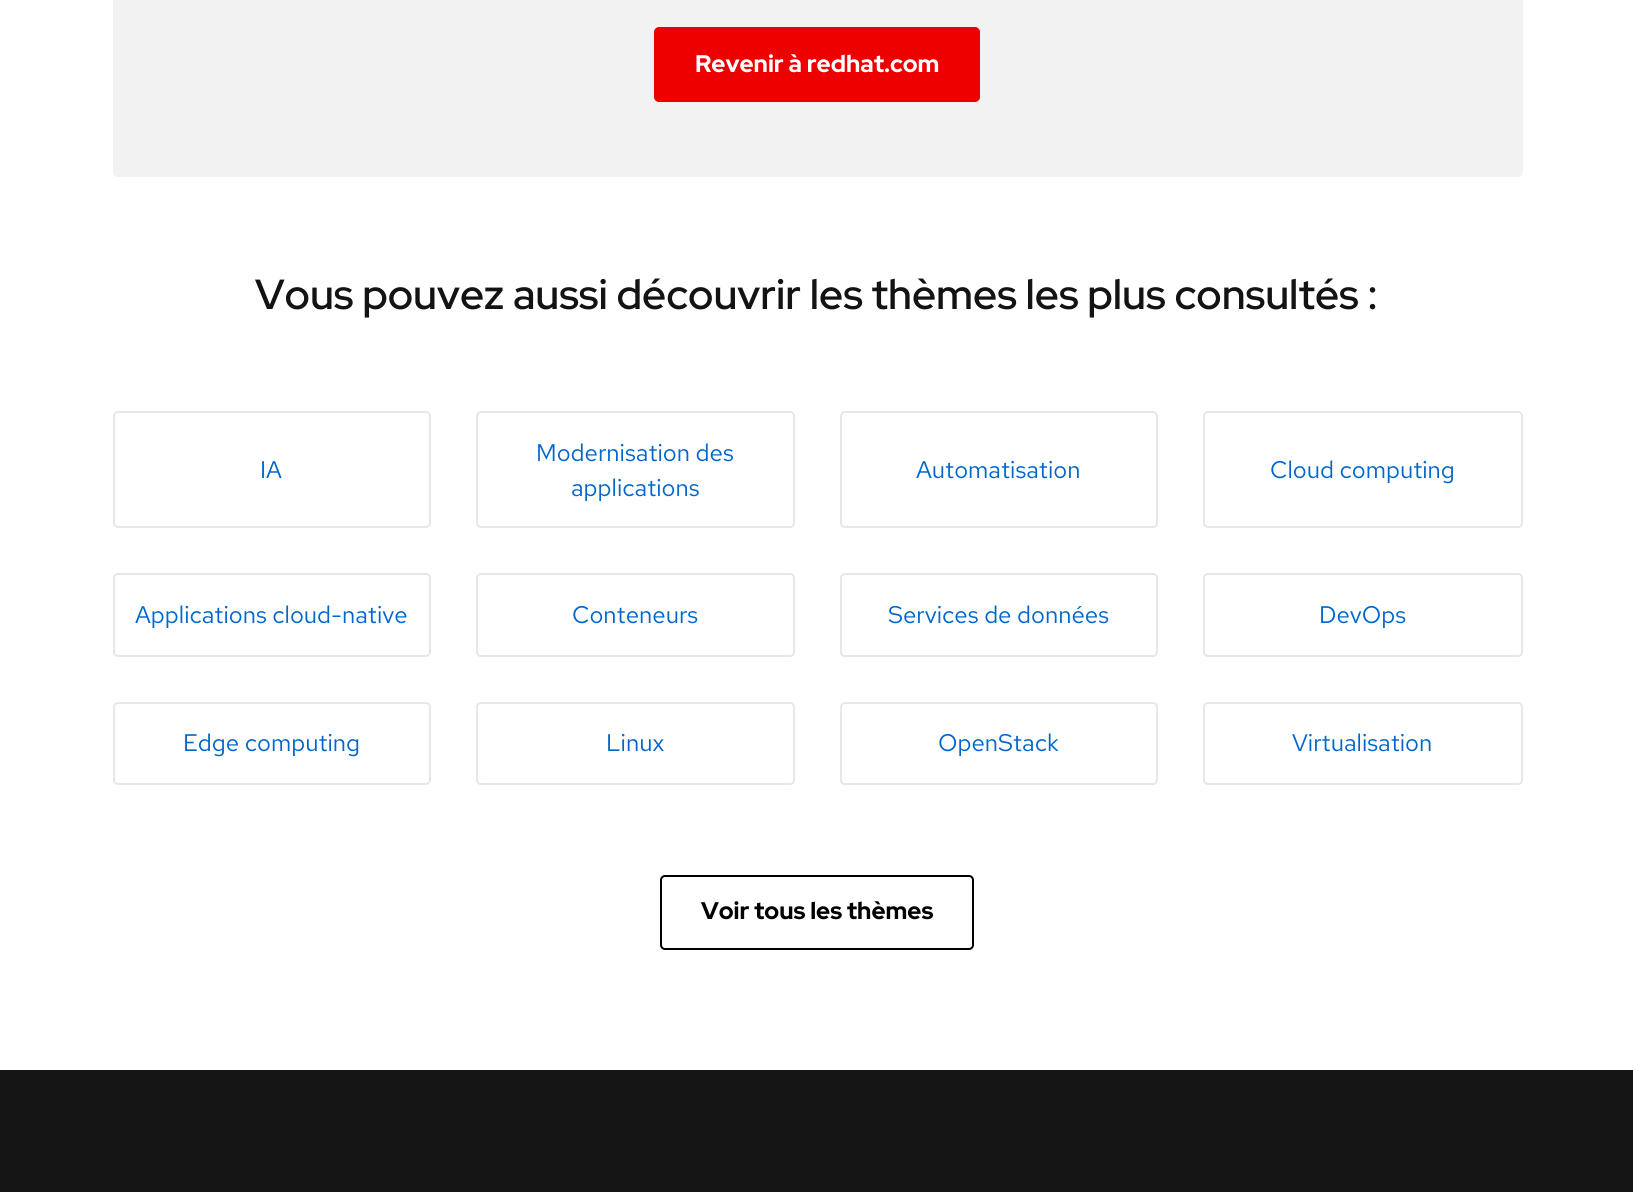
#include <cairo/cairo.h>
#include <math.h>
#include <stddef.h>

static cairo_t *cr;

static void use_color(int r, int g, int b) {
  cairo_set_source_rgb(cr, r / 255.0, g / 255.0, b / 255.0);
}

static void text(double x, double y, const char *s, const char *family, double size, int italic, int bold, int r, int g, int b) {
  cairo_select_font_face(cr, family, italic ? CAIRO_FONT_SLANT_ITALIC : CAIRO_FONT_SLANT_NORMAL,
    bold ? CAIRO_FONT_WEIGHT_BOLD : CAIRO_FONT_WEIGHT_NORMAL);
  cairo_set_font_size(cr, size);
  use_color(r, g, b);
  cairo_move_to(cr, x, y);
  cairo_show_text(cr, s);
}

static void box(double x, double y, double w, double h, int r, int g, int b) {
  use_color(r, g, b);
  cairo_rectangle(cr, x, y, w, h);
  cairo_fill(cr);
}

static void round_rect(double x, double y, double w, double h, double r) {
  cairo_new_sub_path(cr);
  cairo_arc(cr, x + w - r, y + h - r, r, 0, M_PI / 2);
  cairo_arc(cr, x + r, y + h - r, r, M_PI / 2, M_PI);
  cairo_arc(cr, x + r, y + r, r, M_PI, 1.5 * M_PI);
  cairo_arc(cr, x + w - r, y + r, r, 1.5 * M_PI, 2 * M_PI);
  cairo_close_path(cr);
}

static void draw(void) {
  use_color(255, 255, 255);
  cairo_paint(cr);
  use_color(242, 242, 242);
  round_rect(113, -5, 1410, 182, 5);
  cairo_fill(cr);
  use_color(238, 0, 0);
  round_rect(655, 28, 324, 73, 4);
  cairo_fill_preserve(cr);
  cairo_stroke(cr);
  round_rect(114, 412, 316, 115, 4);
  use_color(231, 231, 231);
  cairo_stroke(cr);
  round_rect(477, 412, 317, 115, 4);
  cairo_stroke(cr);
  round_rect(841, 412, 316, 115, 4);
  cairo_stroke(cr);
  round_rect(1204, 412, 318, 115, 4);
  cairo_stroke(cr);
  round_rect(114, 574, 316, 82, 4);
  cairo_stroke(cr);
  round_rect(477, 574, 317, 82, 4);
  cairo_stroke(cr);
  round_rect(841, 574, 316, 82, 4);
  cairo_stroke(cr);
  round_rect(1204, 574, 318, 82, 4);
  cairo_stroke(cr);
  round_rect(114, 703, 316, 81, 4);
  cairo_stroke(cr);
  round_rect(477, 703, 317, 81, 4);
  cairo_stroke(cr);
  round_rect(841, 703, 316, 81, 4);
  cairo_stroke(cr);
  round_rect(1204, 703, 318, 81, 4);
  cairo_stroke(cr);
  round_rect(661, 876, 312, 73, 4);
  use_color(0, 0, 0);
  cairo_stroke(cr);
  box(0, 1070, 1633, 122, 21, 21, 21);
  text(695, 72, "Revenir à redhat.com", "Red Hat Display", 24, 0, 1, 255, 255, 255);
  text(255, 309, "Vous pouvez aussi découvrir les thèmes les plus consultés :", "Red Hat Display", 42, 0, 0, 19, 19, 19);
  text(260, 478, "IA", "Red Hat Text", 24, 0, 0, 0, 102, 204);
  text(536, 461, "Modernisation des", "Red Hat Text", 24, 0, 0, 0, 102, 204);
  text(571, 496, "applications", "Red Hat Text", 24, 0, 0, 0, 102, 204);
  text(916, 478, "Automatisation", "Red Hat Text", 24, 0, 0, 0, 102, 204);
  text(1270, 478, "Cloud computing", "Red Hat Text", 24, 0, 0, 0, 102, 204);
  text(135, 623, "Applications cloud-native", "Red Hat Text", 24, 0, 0, 0, 102, 204);
  text(572, 623, "Conteneurs", "Red Hat Text", 24, 0, 0, 0, 102, 204);
  text(888, 623, "Services de données", "Red Hat Text", 24, 0, 0, 0, 102, 204);
  text(1319, 623, "DevOps", "Red Hat Text", 24, 0, 0, 0, 102, 204);
  text(183, 751, "Edge computing", "Red Hat Text", 24, 0, 0, 0, 102, 204);
  text(606, 751, "Linux", "Red Hat Text", 24, 0, 0, 0, 102, 204);
  text(938, 751, "OpenStack", "Red Hat Text", 24, 0, 0, 0, 102, 204);
  text(1292, 751, "Virtualisation", "Red Hat Text", 24, 0, 0, 0, 102, 204);
  text(701, 919, "Voir tous les thèmes", "Red Hat Display", 24, 0, 1, 0, 0, 0);
}

int main(void) {
  cairo_surface_t *surface = cairo_image_surface_create(CAIRO_FORMAT_RGB24, 1633, 1192);
  cr = cairo_create(surface);
  cairo_font_options_t *options = cairo_font_options_create();
  cairo_font_options_set_hint_metrics(options, CAIRO_HINT_METRICS_OFF);
  cairo_font_options_set_hint_style(options, CAIRO_HINT_STYLE_NONE);
  cairo_set_font_options(cr, options);
  cairo_set_miter_limit(cr, 4);
  draw();
  cairo_surface_write_to_png(surface, "out.png");
  cairo_font_options_destroy(options);
  cairo_destroy(cr);
  cairo_surface_destroy(surface);
  return 0;
}
